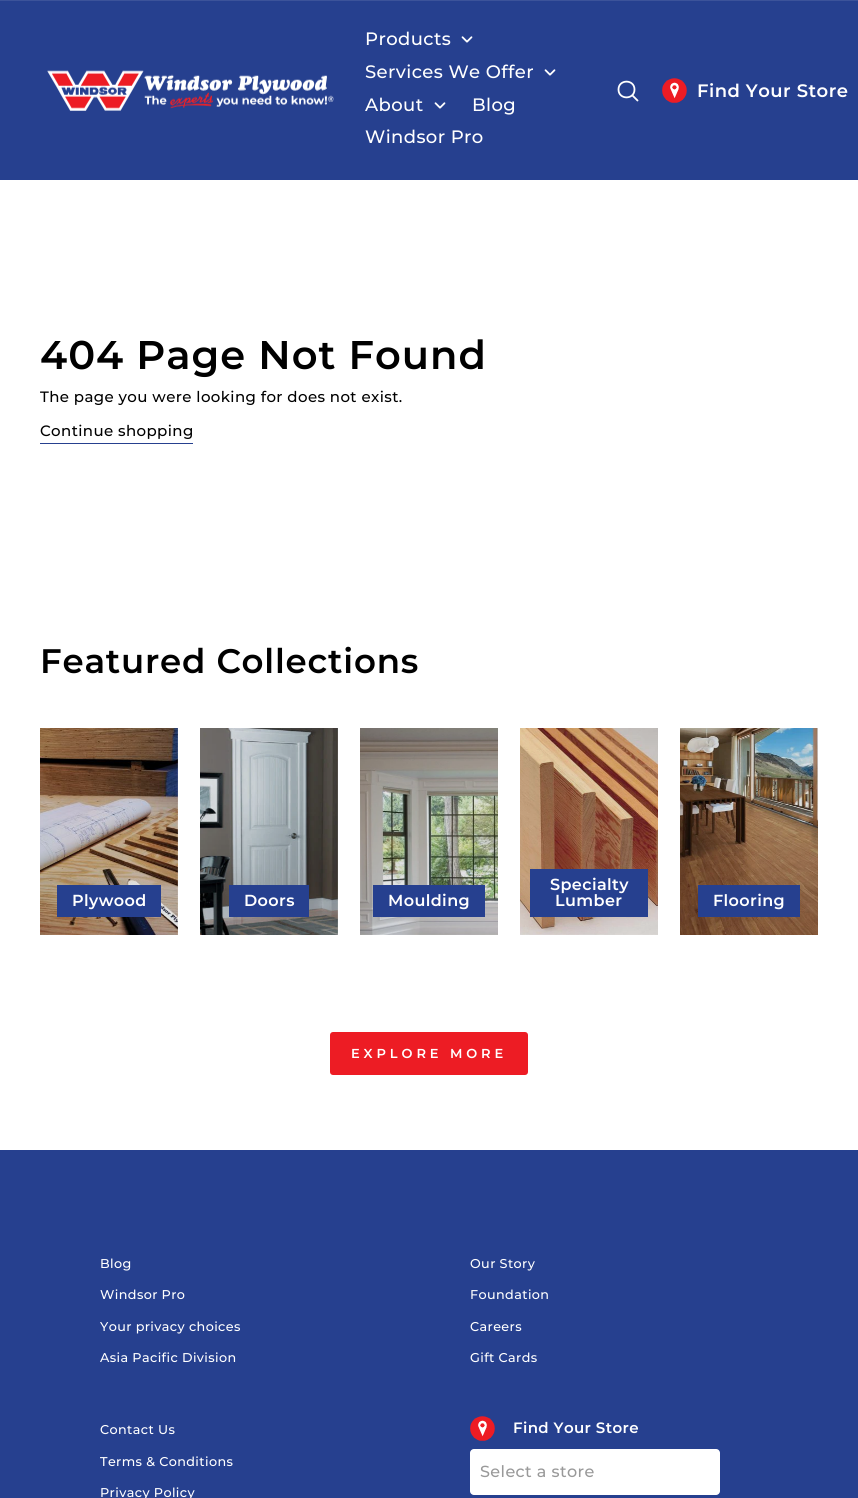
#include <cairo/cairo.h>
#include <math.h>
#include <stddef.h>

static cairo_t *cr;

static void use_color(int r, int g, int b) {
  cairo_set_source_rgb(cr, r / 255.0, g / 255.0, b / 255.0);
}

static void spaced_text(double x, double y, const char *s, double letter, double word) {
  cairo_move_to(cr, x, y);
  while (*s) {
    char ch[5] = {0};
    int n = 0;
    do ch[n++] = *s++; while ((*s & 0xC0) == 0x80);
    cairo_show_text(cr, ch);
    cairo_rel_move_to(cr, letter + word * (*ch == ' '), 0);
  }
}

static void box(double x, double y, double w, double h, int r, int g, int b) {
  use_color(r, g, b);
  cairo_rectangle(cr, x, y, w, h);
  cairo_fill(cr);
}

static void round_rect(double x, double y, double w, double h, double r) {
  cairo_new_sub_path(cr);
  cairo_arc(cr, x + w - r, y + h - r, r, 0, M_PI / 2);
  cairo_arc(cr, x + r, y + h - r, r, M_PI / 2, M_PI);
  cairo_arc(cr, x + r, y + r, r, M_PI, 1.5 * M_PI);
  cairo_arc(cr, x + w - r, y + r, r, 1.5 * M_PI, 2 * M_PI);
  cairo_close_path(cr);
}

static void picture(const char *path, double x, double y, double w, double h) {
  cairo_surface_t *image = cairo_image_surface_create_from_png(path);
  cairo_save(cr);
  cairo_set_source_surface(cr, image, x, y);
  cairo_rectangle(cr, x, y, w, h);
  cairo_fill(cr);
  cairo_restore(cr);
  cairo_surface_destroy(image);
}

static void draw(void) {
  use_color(255, 255, 255);
  cairo_paint(cr);
  box(0, 1, 858, 179, 38, 64, 143);
  box(0, 0, 858, 1, 60, 83, 154);
  picture("img_01.png", 47, 70, 287, 41);
  picture("img_02.png", 461, 36, 12, 7);
  picture("img_02.png", 544, 69, 12, 7);
  picture("img_02.png", 434, 102, 12, 7);
  cairo_new_path(cr);
  cairo_move_to(cr, 634.5, 89.5);
  cairo_curve_to(cr, 634.5, 100, 618.5, 100, 618.5, 89.5);
  cairo_curve_to(cr, 618.5, 79, 634.5, 79, 634.5, 89.5);
  cairo_close_path(cr);
  cairo_move_to(cr, 637.5, 100.5);
  cairo_line_to(cr, 632.5, 95.5);
  use_color(255, 255, 255);
  cairo_set_line_width(cr, 1.8);
  cairo_set_line_cap(cr, CAIRO_LINE_CAP_ROUND);
  cairo_set_line_join(cr, CAIRO_LINE_JOIN_ROUND);
  cairo_stroke(cr);
  picture("img_03.png", 662, 78, 25, 25);
  box(40, 443, 153, 1, 38, 64, 143);
  picture("img_04.png", 40, 728, 138, 207);
  box(57, 885, 104, 32, 38, 64, 143);
  picture("img_05.png", 200, 728, 138, 207);
  box(229, 885, 80, 32, 38, 64, 143);
  picture("img_06.png", 360, 728, 138, 207);
  box(373, 885, 112, 32, 38, 64, 143);
  picture("img_07.png", 520, 728, 138, 207);
  box(530, 869, 118, 48, 38, 64, 143);
  picture("img_08.png", 680, 728, 138, 207);
  box(698, 885, 102, 32, 38, 64, 143);
  use_color(237, 28, 36);
  round_rect(330, 1032, 198, 43, 3);
  cairo_fill(cr);
  box(0, 1150, 858, 348, 38, 64, 143);
  picture("img_03.png", 470, 1416, 25, 25);
  use_color(255, 255, 255);
  round_rect(470, 1449, 250, 46, 4);
  cairo_fill(cr);
  cairo_select_font_face(cr, "Montserrat Medium", CAIRO_FONT_SLANT_NORMAL, CAIRO_FONT_WEIGHT_NORMAL);
  cairo_set_font_size(cr, 18);
  spaced_text(365, 45, "Products", 0.4, 0);
  spaced_text(365, 78, "Services We Offer", 0.4, 0);
  spaced_text(365, 111, "About", 0.4, 0);
  spaced_text(472, 111, "Blog", 0.4, 0);
  spaced_text(365, 143, "Windsor Pro", 0.4, 0);
  cairo_select_font_face(cr, "Montserrat SemiBold", CAIRO_FONT_SLANT_NORMAL, CAIRO_FONT_WEIGHT_NORMAL);
  spaced_text(697, 97, "Find Your Store", 0.5, 0);
  cairo_set_font_size(cr, 40);
  use_color(0, 0, 0);
  spaced_text(40, 369, "404 Page Not Found", 1, 0);
  cairo_select_font_face(cr, "Montserrat Medium", CAIRO_FONT_SLANT_NORMAL, CAIRO_FONT_WEIGHT_NORMAL);
  cairo_set_font_size(cr, 15);
  spaced_text(40, 402, "The page you were looking for does not exist.", 0.4, 0);
  spaced_text(40, 436, "Continue shopping", 0.4, 0);
  cairo_select_font_face(cr, "Montserrat SemiBold", CAIRO_FONT_SLANT_NORMAL, CAIRO_FONT_WEIGHT_NORMAL);
  cairo_set_font_size(cr, 34);
  spaced_text(40, 673, "Featured Collections", 0.8, 0);
  cairo_set_font_size(cr, 16);
  use_color(255, 255, 255);
  spaced_text(72, 906, "Plywood", 0.4, 0);
  spaced_text(244, 906, "Doors", 0.4, 0);
  spaced_text(388, 906, "Moulding", 0.4, 0);
  spaced_text(550, 890, "Specialty", 0.4, 0);
  spaced_text(555, 906, "Lumber", 0.4, 0);
  spaced_text(713, 906, "Flooring", 0.4, 0);
  cairo_set_font_size(cr, 13);
  spaced_text(351, 1058, "EXPLORE MORE", 3.9, 0);
  cairo_select_font_face(cr, "Montserrat Medium", CAIRO_FONT_SLANT_NORMAL, CAIRO_FONT_WEIGHT_NORMAL);
  cairo_set_font_size(cr, 12.75);
  spaced_text(100, 1268, "Blog", 0.4, 0);
  spaced_text(100, 1299, "Windsor Pro", 0.4, 0);
  spaced_text(100, 1331, "Your privacy choices", 0.4, 0);
  spaced_text(100, 1362, "Asia Pacific Division", 0.4, 0);
  spaced_text(470, 1268, "Our Story", 0.4, 0);
  spaced_text(470, 1299, "Foundation", 0.4, 0);
  spaced_text(470, 1331, "Careers", 0.4, 0);
  spaced_text(470, 1362, "Gift Cards", 0.4, 0);
  spaced_text(100, 1434, "Contact Us", 0.4, 0);
  spaced_text(100, 1466, "Terms & Conditions", 0.4, 0);
  spaced_text(100, 1497, "Privacy Policy", 0.4, 0);
  cairo_select_font_face(cr, "Montserrat SemiBold", CAIRO_FONT_SLANT_NORMAL, CAIRO_FONT_WEIGHT_NORMAL);
  cairo_set_font_size(cr, 15);
  spaced_text(513, 1433, "Find Your Store", 0.4, 0);
  cairo_select_font_face(cr, "Montserrat Medium", CAIRO_FONT_SLANT_NORMAL, CAIRO_FONT_WEIGHT_NORMAL);
  cairo_set_font_size(cr, 16);
  use_color(153, 153, 153);
  spaced_text(480, 1477, "Select a store", 0.4, 0);
}

int main(void) {
  cairo_surface_t *surface = cairo_image_surface_create(CAIRO_FORMAT_RGB24, 858, 1498);
  cr = cairo_create(surface);
  cairo_font_options_t *options = cairo_font_options_create();
  cairo_font_options_set_hint_metrics(options, CAIRO_HINT_METRICS_OFF);
  cairo_font_options_set_hint_style(options, CAIRO_HINT_STYLE_NONE);
  cairo_set_font_options(cr, options);
  cairo_set_miter_limit(cr, 4);
  draw();
  cairo_surface_write_to_png(surface, "out.png");
  cairo_font_options_destroy(options);
  cairo_destroy(cr);
  cairo_surface_destroy(surface);
  return 0;
}
